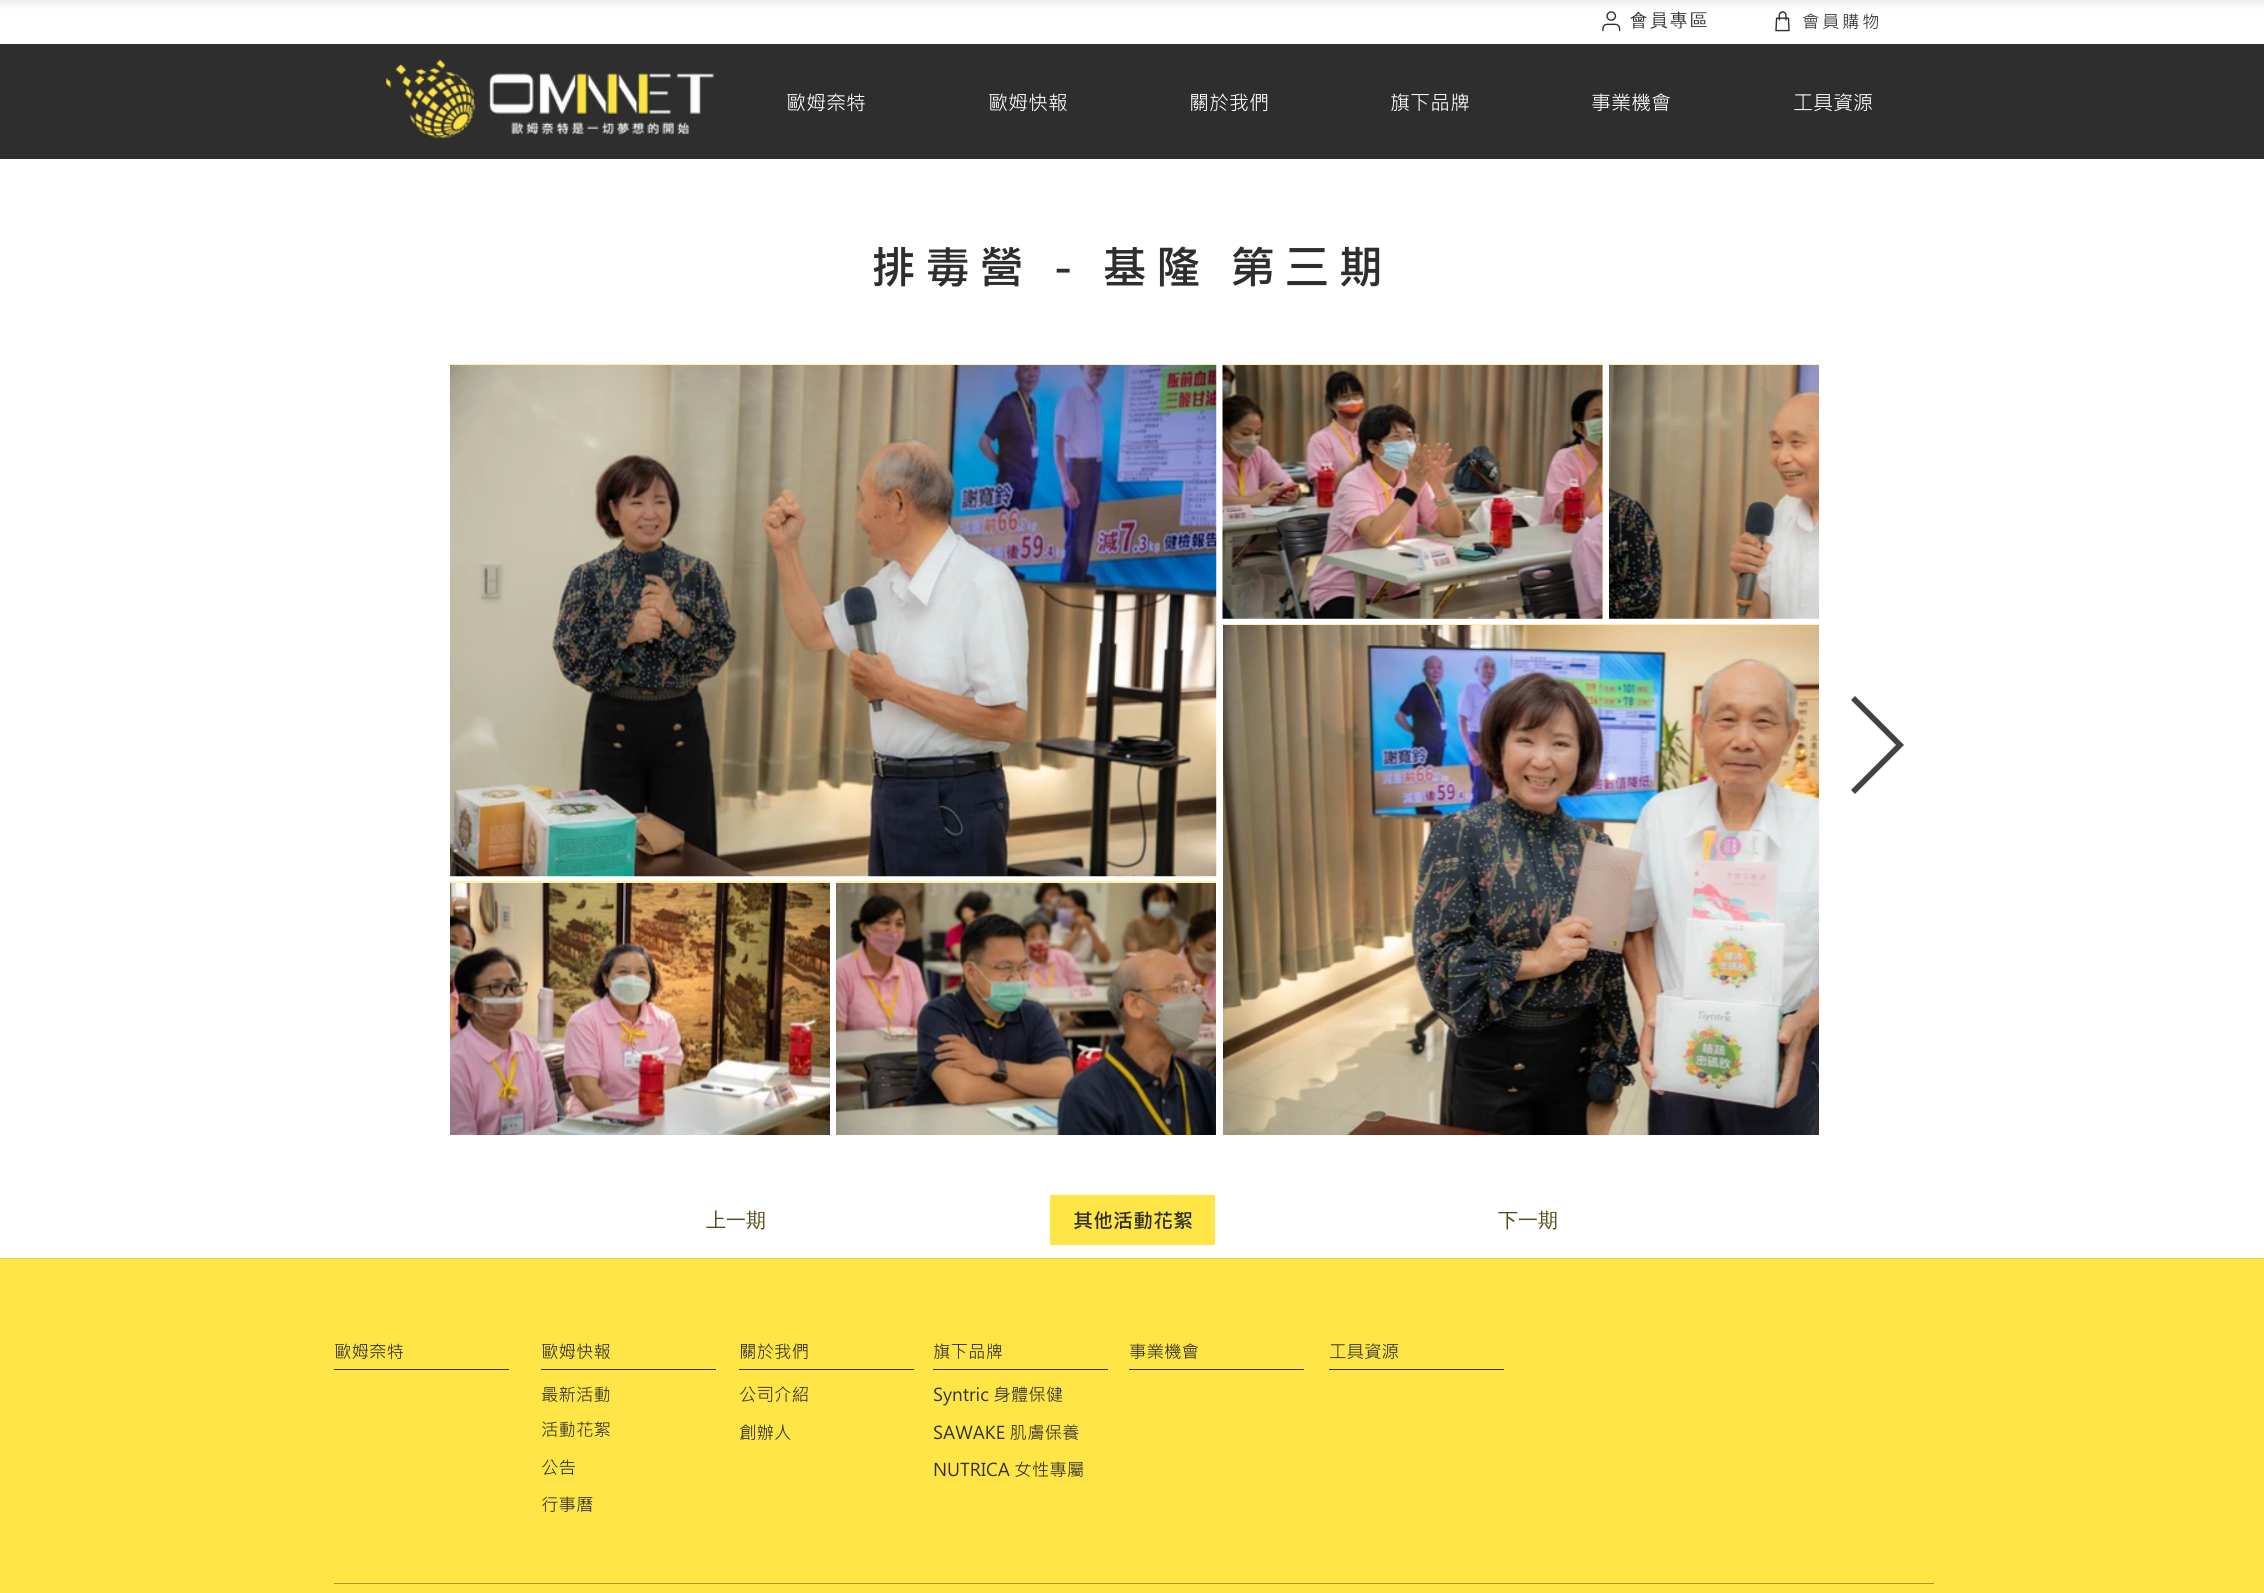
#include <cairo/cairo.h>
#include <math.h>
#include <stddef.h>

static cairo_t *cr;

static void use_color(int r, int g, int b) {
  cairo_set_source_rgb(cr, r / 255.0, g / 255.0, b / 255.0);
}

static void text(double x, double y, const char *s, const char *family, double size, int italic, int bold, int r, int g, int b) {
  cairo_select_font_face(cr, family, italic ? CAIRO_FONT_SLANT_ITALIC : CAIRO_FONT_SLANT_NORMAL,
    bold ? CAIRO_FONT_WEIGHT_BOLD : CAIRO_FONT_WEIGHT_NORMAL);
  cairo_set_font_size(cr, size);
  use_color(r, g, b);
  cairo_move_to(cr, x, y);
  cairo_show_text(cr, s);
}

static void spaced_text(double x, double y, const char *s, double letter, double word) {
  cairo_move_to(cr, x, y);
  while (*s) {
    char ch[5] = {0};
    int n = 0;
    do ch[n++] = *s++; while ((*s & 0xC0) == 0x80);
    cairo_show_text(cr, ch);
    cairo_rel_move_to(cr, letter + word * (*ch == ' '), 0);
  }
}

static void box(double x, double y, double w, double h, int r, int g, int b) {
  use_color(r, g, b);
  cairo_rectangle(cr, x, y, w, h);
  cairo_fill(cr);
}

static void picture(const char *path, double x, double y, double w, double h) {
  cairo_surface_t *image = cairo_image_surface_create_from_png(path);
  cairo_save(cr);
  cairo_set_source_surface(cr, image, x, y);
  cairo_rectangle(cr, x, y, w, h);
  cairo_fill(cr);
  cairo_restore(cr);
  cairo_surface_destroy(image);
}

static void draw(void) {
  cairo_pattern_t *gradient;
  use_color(255, 255, 255);
  cairo_paint(cr);
  gradient = cairo_pattern_create_linear(1133, 44, 1133, 0);
  cairo_pattern_add_color_stop_rgba(gradient, 0.77, 1, 1, 1, 1);
  cairo_pattern_add_color_stop_rgba(gradient, 1, 0.933, 0.933, 0.933, 1);
  cairo_set_source(cr, gradient);
  cairo_pattern_destroy(gradient);
  cairo_rectangle(cr, 0, 0, 2264, 9);
  cairo_fill(cr);
  picture("img_01.png", 1602, 11, 19, 21);
  picture("img_02.png", 1775, 11, 15, 21);
  box(0, 44, 2264, 115, 46, 46, 47);
  picture("img_03.png", 386, 59, 328, 80);
  box(450, 364, 766, 1, 255, 242, 163);
  picture("img_04.png", 450, 365, 767, 512);
  box(450, 881, 380, 2, 255, 242, 163);
  picture("img_05.png", 450, 883, 380, 252);
  box(836, 881, 380, 2, 255, 242, 163);
  picture("img_06.png", 836, 883, 380, 252);
  box(1223, 364, 380, 254, 255, 242, 163);
  picture("img_07.png", 1222, 365, 381, 254);
  box(1609, 364, 210, 1, 255, 242, 163);
  picture("img_08.png", 1609, 365, 210, 254);
  box(1223, 624, 596, 1, 255, 242, 163);
  picture("img_09.png", 1223, 625, 596, 510);
  use_color(67, 67, 68);
  cairo_new_path(cr);
  cairo_move_to(cr, 1851, 700);
  cairo_line_to(cr, 1855, 696);
  cairo_line_to(cr, 1904, 745);
  cairo_line_to(cr, 1855, 794);
  cairo_line_to(cr, 1851, 790);
  cairo_line_to(cr, 1896, 745);
  cairo_close_path(cr);
  cairo_fill(cr);
  box(1050, 1195, 165, 50, 255, 229, 70);
  box(0, 1259, 2264, 334, 255, 229, 70);
  box(0, 1258, 2264, 1, 230, 206, 63);
  box(334, 1369, 175, 1, 46, 46, 47);
  box(541, 1369, 175, 1, 46, 46, 47);
  box(739, 1369, 175, 1, 46, 46, 47);
  box(933, 1369, 175, 1, 46, 46, 47);
  box(1129, 1369, 175, 1, 46, 46, 47);
  box(1329, 1369, 175, 1, 46, 46, 47);
  box(334, 1583, 1600, 1, 170, 153, 47);
  cairo_select_font_face(cr, "WenQuanYi Zen Hei Medium", CAIRO_FONT_SLANT_NORMAL, CAIRO_FONT_WEIGHT_NORMAL);
  cairo_set_font_size(cr, 17.5);
  use_color(46, 46, 47);
  spaced_text(1630, 26, "會員專區", 2.5, 0);
  cairo_select_font_face(cr, "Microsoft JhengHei", CAIRO_FONT_SLANT_NORMAL, CAIRO_FONT_WEIGHT_NORMAL);
  spaced_text(1802, 28, "會員購物", 2.5, 0);
  text(786, 110, "歐姆奈特", "Microsoft JhengHei", 20, 0, 0, 255, 255, 255);
  text(988, 110, "歐姆快報", "Microsoft JhengHei", 20, 0, 0, 255, 255, 255);
  text(1189, 110, "關於我們", "Microsoft JhengHei", 20, 0, 0, 255, 255, 255);
  text(1390, 110, "旗下品牌", "Microsoft JhengHei", 20, 0, 0, 255, 255, 255);
  text(1591, 110, "事業機會", "Microsoft JhengHei", 20, 0, 0, 255, 255, 255);
  text(1793, 110, "工具資源", "Microsoft JhengHei", 20, 0, 0, 255, 255, 255);
  cairo_select_font_face(cr, "Microsoft JhengHei", CAIRO_FONT_SLANT_NORMAL, CAIRO_FONT_WEIGHT_BOLD);
  cairo_set_font_size(cr, 45);
  use_color(46, 46, 47);
  spaced_text(871, 284, "排毒營 - 基隆 第三期", 9, 0);
  text(706, 1227, "上一期", "WenQuanYi Zen Hei Medium", 20, 0, 0, 85, 76, 23);
  text(1073, 1228, "其他活動花絮", "Microsoft JhengHei", 20, 0, 1, 46, 46, 47);
  text(1498, 1227, "下一期", "WenQuanYi Zen Hei Medium", 20, 0, 0, 85, 76, 23);
  text(334, 1358, "歐姆奈特", "Microsoft JhengHei", 17.5, 0, 0, 46, 46, 47);
  text(541, 1358, "歐姆快報", "Microsoft JhengHei", 17.5, 0, 0, 46, 46, 47);
  text(739, 1358, "關於我們", "Microsoft JhengHei", 17.5, 0, 0, 46, 46, 47);
  text(933, 1358, "旗下品牌", "Microsoft JhengHei", 17.5, 0, 0, 46, 46, 47);
  text(1129, 1358, "事業機會", "Microsoft JhengHei", 17.5, 0, 0, 46, 46, 47);
  text(1329, 1358, "工具資源", "Microsoft JhengHei", 17.5, 0, 0, 46, 46, 47);
  text(541, 1401, "最新活動", "Microsoft JhengHei", 17.5, 0, 0, 46, 46, 47);
  text(739, 1401, "公司介紹", "Microsoft JhengHei", 17.5, 0, 0, 46, 46, 47);
  text(933, 1401, "Syntric 身體保健", "Microsoft JhengHei", 17.5, 0, 0, 46, 46, 47);
  text(541, 1436, "活動花絮", "Microsoft JhengHei", 17.5, 0, 0, 46, 46, 47);
  text(739, 1439, "創辦人", "Microsoft JhengHei", 17.5, 0, 0, 46, 46, 47);
  text(933, 1439, "SAWAKE 肌膚保養", "Microsoft JhengHei", 17.5, 0, 0, 46, 46, 47);
  text(541, 1474, "公告", "Microsoft JhengHei", 17.5, 0, 0, 46, 46, 47);
  text(933, 1476, "NUTRICA 女性專屬", "Microsoft JhengHei", 17.5, 0, 0, 46, 46, 47);
  text(541, 1511, "行事曆", "Microsoft JhengHei", 17.5, 0, 0, 46, 46, 47);
}

int main(void) {
  cairo_surface_t *surface = cairo_image_surface_create(CAIRO_FORMAT_RGB24, 2264, 1593);
  cr = cairo_create(surface);
  cairo_font_options_t *options = cairo_font_options_create();
  cairo_font_options_set_hint_metrics(options, CAIRO_HINT_METRICS_OFF);
  cairo_font_options_set_hint_style(options, CAIRO_HINT_STYLE_NONE);
  cairo_set_font_options(cr, options);
  cairo_set_miter_limit(cr, 4);
  draw();
  cairo_surface_write_to_png(surface, "out.png");
  cairo_font_options_destroy(options);
  cairo_destroy(cr);
  cairo_surface_destroy(surface);
  return 0;
}
